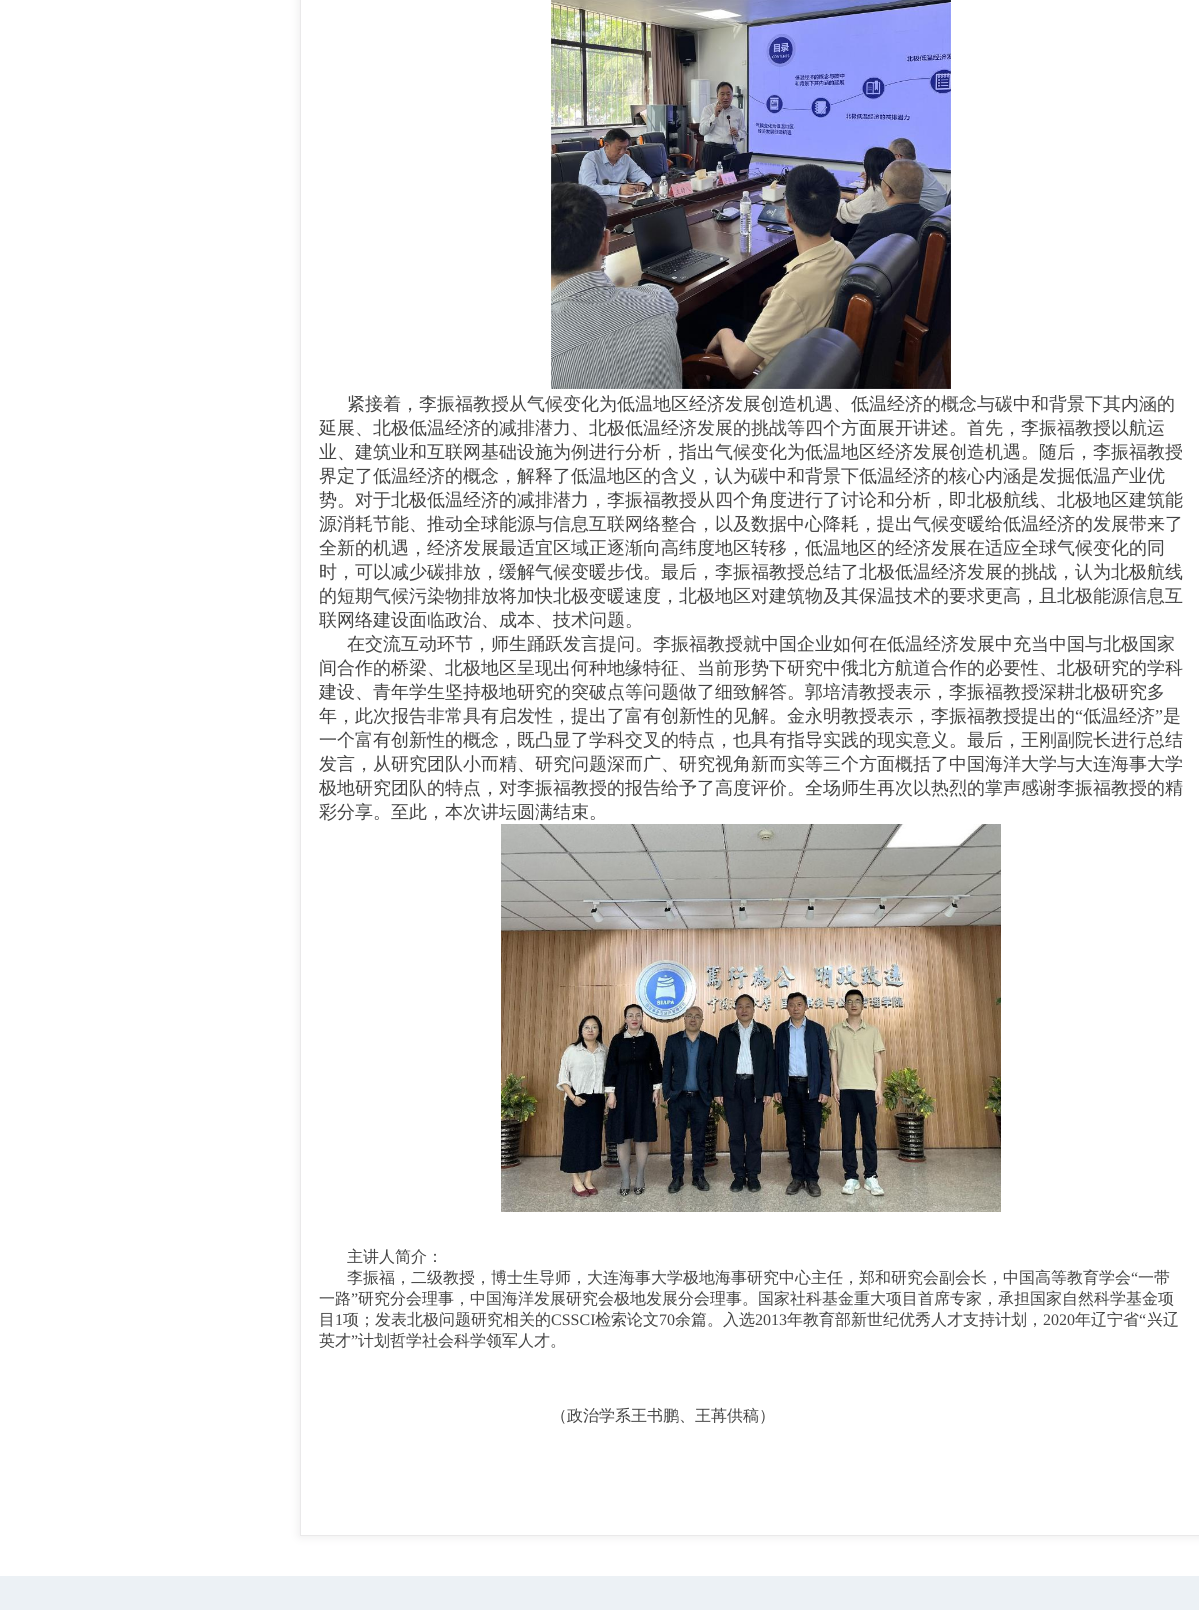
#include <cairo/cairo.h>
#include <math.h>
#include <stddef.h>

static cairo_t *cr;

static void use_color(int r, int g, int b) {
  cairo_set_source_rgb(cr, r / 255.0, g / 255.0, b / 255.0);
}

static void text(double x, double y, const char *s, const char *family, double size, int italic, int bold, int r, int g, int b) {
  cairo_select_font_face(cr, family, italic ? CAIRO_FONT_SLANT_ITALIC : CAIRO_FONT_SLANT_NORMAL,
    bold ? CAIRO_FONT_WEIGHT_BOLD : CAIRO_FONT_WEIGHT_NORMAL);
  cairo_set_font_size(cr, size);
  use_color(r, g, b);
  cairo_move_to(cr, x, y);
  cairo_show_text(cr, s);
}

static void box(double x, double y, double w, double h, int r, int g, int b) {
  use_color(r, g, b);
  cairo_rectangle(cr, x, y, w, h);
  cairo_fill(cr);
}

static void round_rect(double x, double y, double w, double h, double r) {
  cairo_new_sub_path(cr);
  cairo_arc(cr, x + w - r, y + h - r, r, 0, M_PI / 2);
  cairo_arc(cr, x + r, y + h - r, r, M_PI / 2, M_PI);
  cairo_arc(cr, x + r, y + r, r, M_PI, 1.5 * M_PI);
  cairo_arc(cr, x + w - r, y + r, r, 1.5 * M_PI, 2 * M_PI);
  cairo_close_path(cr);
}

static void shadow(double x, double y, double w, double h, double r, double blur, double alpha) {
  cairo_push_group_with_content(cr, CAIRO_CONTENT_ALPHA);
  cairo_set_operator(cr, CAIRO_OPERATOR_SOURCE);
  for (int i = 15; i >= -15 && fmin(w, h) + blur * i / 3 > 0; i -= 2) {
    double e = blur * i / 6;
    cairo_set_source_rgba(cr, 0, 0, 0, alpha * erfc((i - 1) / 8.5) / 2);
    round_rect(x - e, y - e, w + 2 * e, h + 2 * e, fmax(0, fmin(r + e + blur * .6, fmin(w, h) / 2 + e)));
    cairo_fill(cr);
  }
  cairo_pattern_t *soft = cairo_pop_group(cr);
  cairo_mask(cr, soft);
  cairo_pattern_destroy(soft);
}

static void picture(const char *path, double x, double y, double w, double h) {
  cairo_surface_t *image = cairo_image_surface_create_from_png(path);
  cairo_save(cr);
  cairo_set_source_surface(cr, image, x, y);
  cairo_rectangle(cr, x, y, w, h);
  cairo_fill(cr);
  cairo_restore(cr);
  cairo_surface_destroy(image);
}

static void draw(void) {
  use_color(255, 255, 255);
  cairo_paint(cr);
  cairo_save(cr);
  cairo_set_fill_rule(cr, CAIRO_FILL_RULE_EVEN_ODD);
  cairo_new_path(cr);
  cairo_move_to(cr, 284, 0);
  cairo_line_to(cr, 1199, 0);
  cairo_line_to(cr, 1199, 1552);
  cairo_line_to(cr, 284, 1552);
  cairo_close_path(cr);
  cairo_move_to(cr, 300, -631);
  cairo_line_to(cr, 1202, -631);
  cairo_line_to(cr, 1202, 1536);
  cairo_line_to(cr, 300, 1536);
  cairo_close_path(cr);
  cairo_clip(cr);
  use_color(234, 233, 234);
  shadow(300, -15, 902, 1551, 0, 5, 1);
  cairo_restore(cr);
  cairo_rectangle(cr, 300.5, -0.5, 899, 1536);
  use_color(234, 233, 234);
  cairo_set_line_width(cr, 1);
  cairo_stroke(cr);
  picture("img_01.png", 551, 0, 400, 389);
  picture("img_02.png", 501, 824, 500, 388);
  box(0, 1576, 1199, 34, 236, 241, 245);
  text(347, 410, "紧接着，李振福教授从气候变化为低温地区经济发展创造机遇、低温经济的概念与碳中和背景下其内涵的", "WenQuanYi Zen Hei Medium", 18, 0, 0, 68, 68, 68);
  text(319, 434, "延展、北极低温经济的减排潜力、北极低温经济发展的挑战等四个方面展开讲述。首先，李振福教授以航运", "WenQuanYi Zen Hei Medium", 18, 0, 0, 68, 68, 68);
  text(319, 458, "业、建筑业和互联网基础设施为例进行分析，指出气候变化为低温地区经济发展创造机遇。随后，李振福教授", "WenQuanYi Zen Hei Medium", 18, 0, 0, 68, 68, 68);
  text(319, 482, "界定了低温经济的概念，解释了低温地区的含义，认为碳中和背景下低温经济的核心内涵是发掘低温产业优", "WenQuanYi Zen Hei Medium", 18, 0, 0, 68, 68, 68);
  text(319, 506, "势。对于北极低温经济的减排潜力，李振福教授从四个角度进行了讨论和分析，即北极航线、北极地区建筑能", "WenQuanYi Zen Hei Medium", 18, 0, 0, 68, 68, 68);
  text(319, 530, "源消耗节能、推动全球能源与信息互联网络整合，以及数据中心降耗，提出气候变暖给低温经济的发展带来了", "WenQuanYi Zen Hei Medium", 18, 0, 0, 68, 68, 68);
  text(319, 554, "全新的机遇，经济发展最适宜区域正逐渐向高纬度地区转移，低温地区的经济发展在适应全球气候变化的同", "WenQuanYi Zen Hei Medium", 18, 0, 0, 68, 68, 68);
  text(319, 578, "时，可以减少碳排放，缓解气候变暖步伐。最后，李振福教授总结了北极低温经济发展的挑战，认为北极航线", "WenQuanYi Zen Hei Medium", 18, 0, 0, 68, 68, 68);
  text(319, 602, "的短期气候污染物排放将加快北极变暖速度，北极地区对建筑物及其保温技术的要求更高，且北极能源信息互", "WenQuanYi Zen Hei Medium", 18, 0, 0, 68, 68, 68);
  text(319, 626, "联网络建设面临政治、成本、技术问题。", "WenQuanYi Zen Hei Medium", 18, 0, 0, 68, 68, 68);
  text(347, 650, "在交流互动环节，师生踊跃发言提问。李振福教授就中国企业如何在低温经济发展中充当中国与北极国家", "WenQuanYi Zen Hei Medium", 18, 0, 0, 68, 68, 68);
  text(319, 674, "间合作的桥梁、北极地区呈现出何种地缘特征、当前形势下研究中俄北方航道合作的必要性、北极研究的学科", "WenQuanYi Zen Hei Medium", 18, 0, 0, 68, 68, 68);
  text(319, 698, "建设、青年学生坚持极地研究的突破点等问题做了细致解答。郭培清教授表示，李振福教授深耕北极研究多", "WenQuanYi Zen Hei Medium", 18, 0, 0, 68, 68, 68);
  text(319, 722, "年，此次报告非常具有启发性，提出了富有创新性的见解。金永明教授表示，李振福教授提出的", "WenQuanYi Zen Hei Medium", 18, 0, 0, 68, 68, 68);
  text(1075, 722, "“", "Liberation Serif", 18, 0, 0, 68, 68, 68);
  text(1083, 722, "低温经济", "WenQuanYi Zen Hei Medium", 18, 0, 0, 68, 68, 68);
  text(1155, 722, "”", "Liberation Serif", 18, 0, 0, 68, 68, 68);
  text(1163, 722, "是", "WenQuanYi Zen Hei Medium", 18, 0, 0, 68, 68, 68);
  text(319, 746, "一个富有创新性的概念，既凸显了学科交叉的特点，也具有指导实践的现实意义。最后，王刚副院长进行总结", "WenQuanYi Zen Hei Medium", 18, 0, 0, 68, 68, 68);
  text(319, 770, "发言，从研究团队小而精、研究问题深而广、研究视角新而实等三个方面概括了中国海洋大学与大连海事大学", "WenQuanYi Zen Hei Medium", 18, 0, 0, 68, 68, 68);
  text(319, 794, "极地研究团队的特点，对李振福教授的报告给予了高度评价。全场师生再次以热烈的掌声感谢李振福教授的精", "WenQuanYi Zen Hei Medium", 18, 0, 0, 68, 68, 68);
  text(319, 818, "彩分享。至此，本次讲坛圆满结束。", "WenQuanYi Zen Hei Medium", 18, 0, 0, 68, 68, 68);
  text(347, 1262, "主讲人简介：", "WenQuanYi Zen Hei Medium", 16, 0, 0, 68, 68, 68);
  text(347, 1283, "李振福，二级教授，博士生导师，大连海事大学极地海事研究中心主任，郑和研究会副会长，中国高等教育学会", "WenQuanYi Zen Hei Medium", 16, 0, 0, 68, 68, 68);
  text(1131, 1283, "“", "Liberation Serif", 16, 0, 0, 68, 68, 68);
  text(1138, 1283, "一带", "WenQuanYi Zen Hei Medium", 16, 0, 0, 68, 68, 68);
  text(319, 1304, "一路", "WenQuanYi Zen Hei Medium", 16, 0, 0, 68, 68, 68);
  text(351, 1304, "”", "Liberation Serif", 16, 0, 0, 68, 68, 68);
  text(358, 1304, "研究分会理事，中国海洋发展研究会极地发展分会理事。国家社科基金重大项目首席专家，承担国家自然科学基金项", "WenQuanYi Zen Hei Medium", 16, 0, 0, 68, 68, 68);
  text(319, 1325, "目", "WenQuanYi Zen Hei Medium", 16, 0, 0, 68, 68, 68);
  text(335, 1325, "1", "Liberation Serif", 16, 0, 0, 68, 68, 68);
  text(343, 1325, "项；发表北极问题研究相关的", "WenQuanYi Zen Hei Medium", 16, 0, 0, 68, 68, 68);
  text(551, 1325, "CSSCI", "Liberation Serif", 16, 0, 0, 68, 68, 68);
  text(595, 1325, "检索论文", "WenQuanYi Zen Hei Medium", 16, 0, 0, 68, 68, 68);
  text(659, 1325, "70", "Liberation Serif", 16, 0, 0, 68, 68, 68);
  text(675, 1325, "余篇。入选", "WenQuanYi Zen Hei Medium", 16, 0, 0, 68, 68, 68);
  text(755, 1325, "2013", "Liberation Serif", 16, 0, 0, 68, 68, 68);
  text(787, 1325, "年教育部新世纪优秀人才支持计划，", "WenQuanYi Zen Hei Medium", 16, 0, 0, 68, 68, 68);
  text(1043, 1325, "2020", "Liberation Serif", 16, 0, 0, 68, 68, 68);
  text(1075, 1325, "年辽宁省", "WenQuanYi Zen Hei Medium", 16, 0, 0, 68, 68, 68);
  text(1139, 1325, "“", "Liberation Serif", 16, 0, 0, 68, 68, 68);
  text(1147, 1325, "兴辽", "WenQuanYi Zen Hei Medium", 16, 0, 0, 68, 68, 68);
  text(319, 1346, "英才", "WenQuanYi Zen Hei Medium", 16, 0, 0, 68, 68, 68);
  text(351, 1346, "”", "Liberation Serif", 16, 0, 0, 68, 68, 68);
  text(358, 1346, "计划哲学社会科学领军人才。", "WenQuanYi Zen Hei Medium", 16, 0, 0, 68, 68, 68);
  text(551, 1421, "（政治学系王书鹏、王苒供稿）", "WenQuanYi Zen Hei Medium", 16, 0, 0, 68, 68, 68);
}

int main(void) {
  cairo_surface_t *surface = cairo_image_surface_create(CAIRO_FORMAT_RGB24, 1199, 1610);
  cr = cairo_create(surface);
  cairo_font_options_t *options = cairo_font_options_create();
  cairo_font_options_set_hint_metrics(options, CAIRO_HINT_METRICS_OFF);
  cairo_font_options_set_hint_style(options, CAIRO_HINT_STYLE_NONE);
  cairo_set_font_options(cr, options);
  cairo_set_miter_limit(cr, 4);
  draw();
  cairo_surface_write_to_png(surface, "out.png");
  cairo_font_options_destroy(options);
  cairo_destroy(cr);
  cairo_surface_destroy(surface);
  return 0;
}
